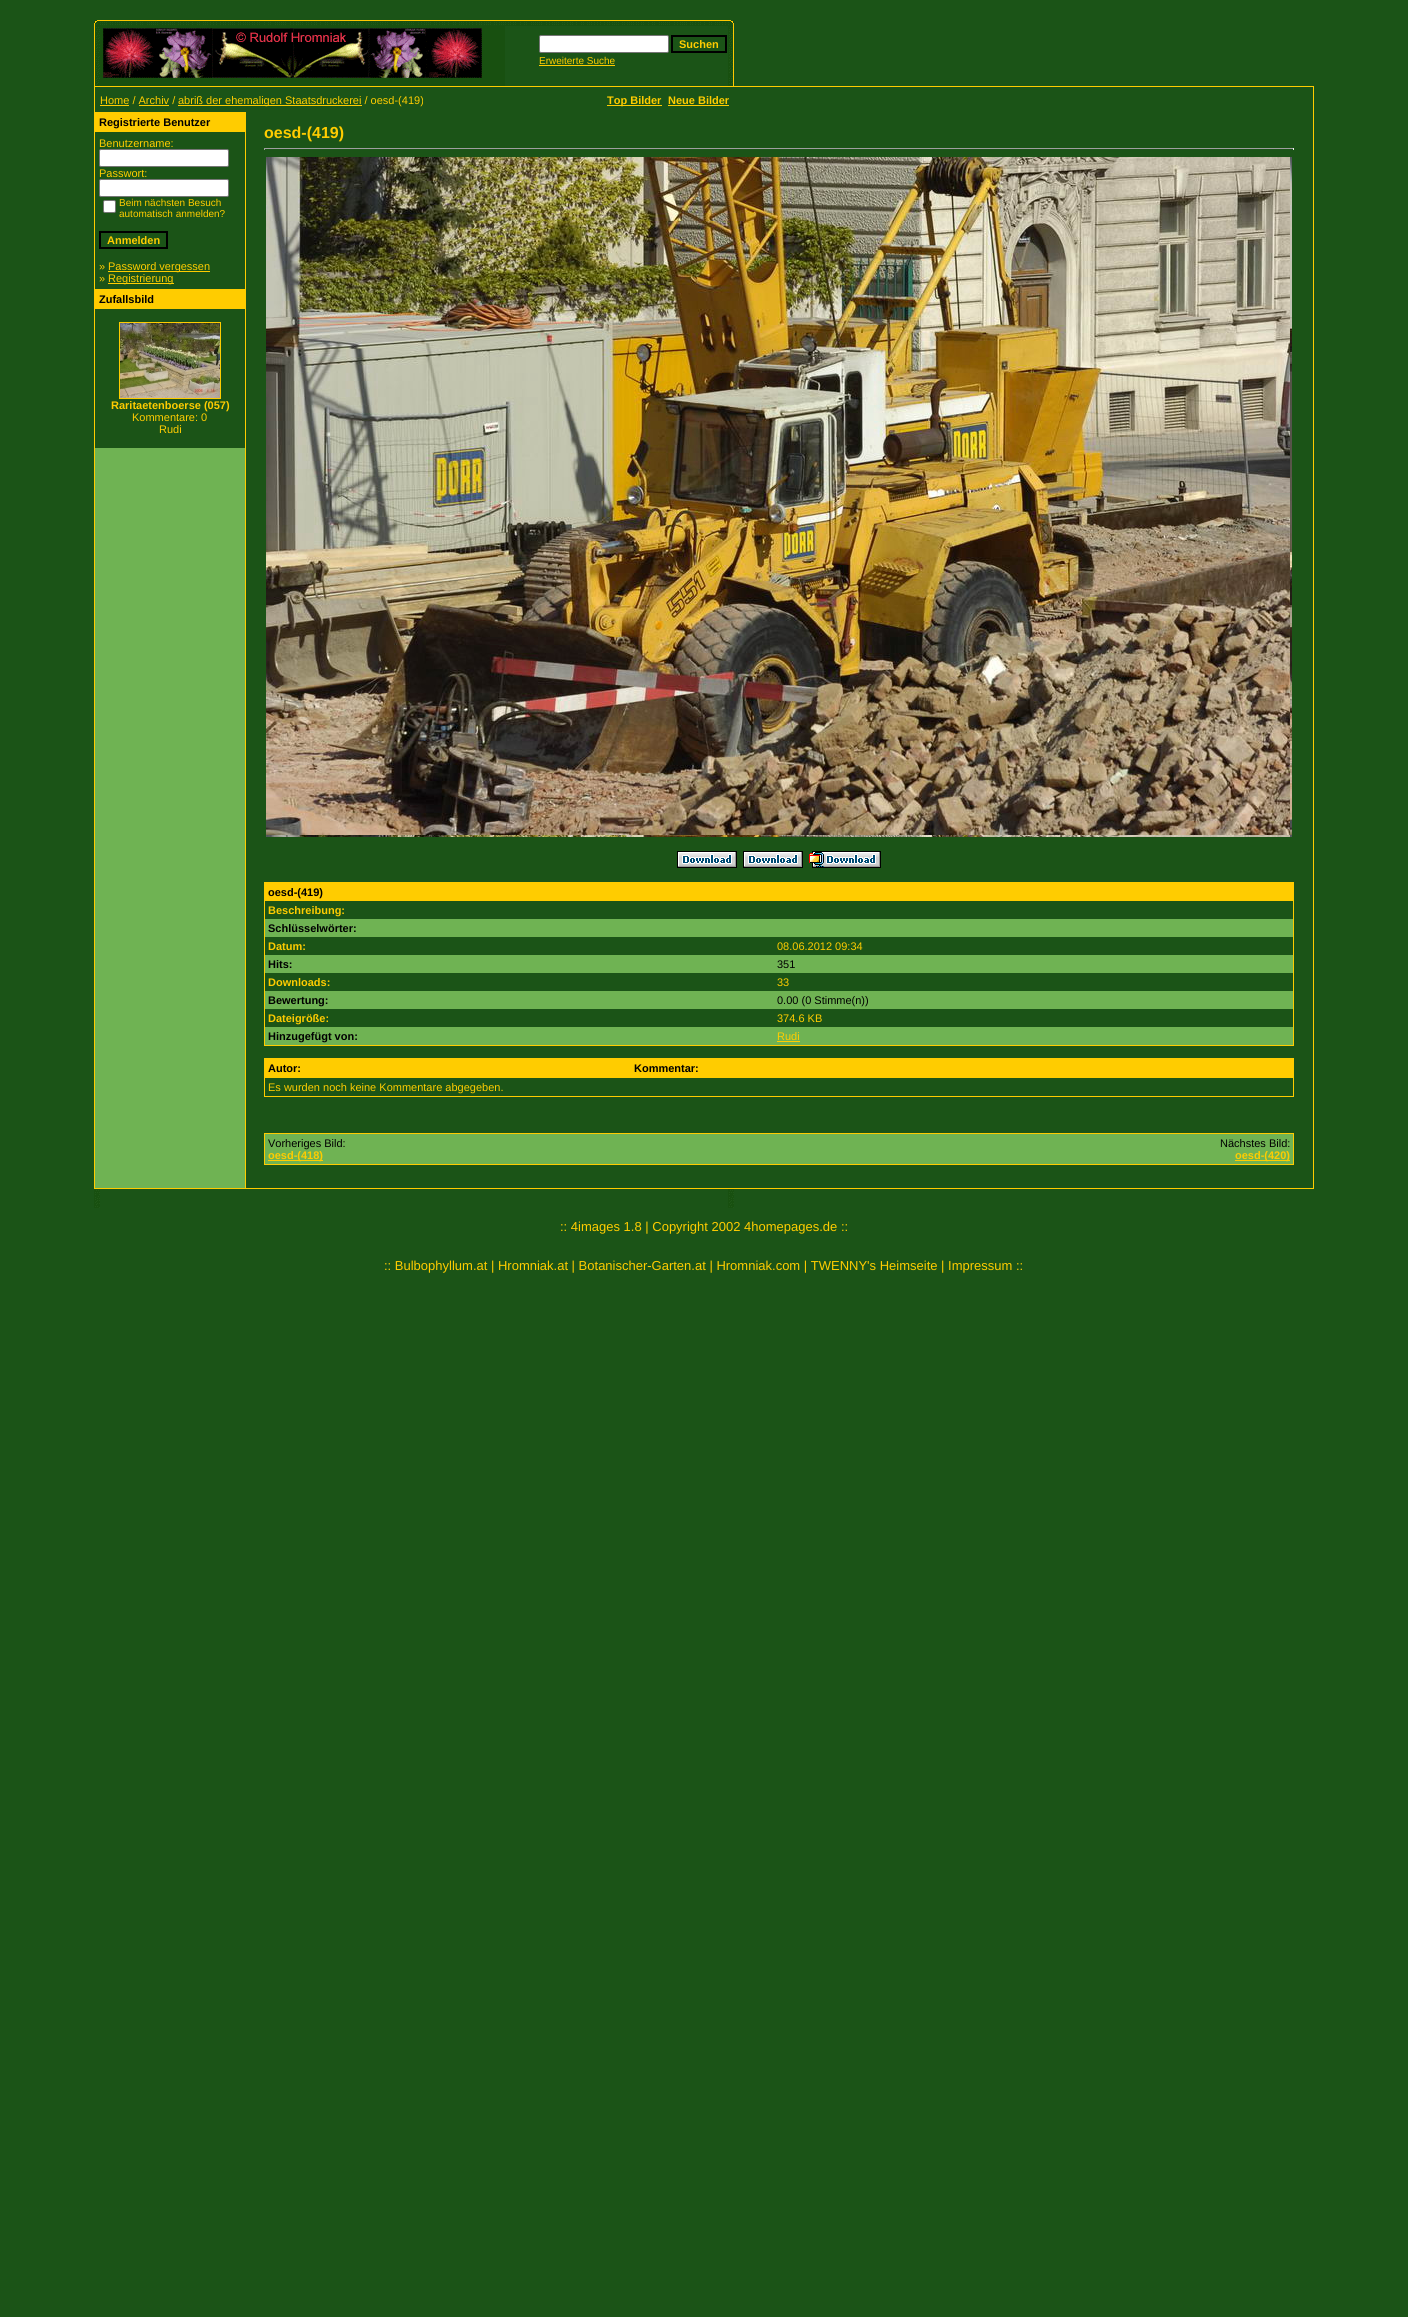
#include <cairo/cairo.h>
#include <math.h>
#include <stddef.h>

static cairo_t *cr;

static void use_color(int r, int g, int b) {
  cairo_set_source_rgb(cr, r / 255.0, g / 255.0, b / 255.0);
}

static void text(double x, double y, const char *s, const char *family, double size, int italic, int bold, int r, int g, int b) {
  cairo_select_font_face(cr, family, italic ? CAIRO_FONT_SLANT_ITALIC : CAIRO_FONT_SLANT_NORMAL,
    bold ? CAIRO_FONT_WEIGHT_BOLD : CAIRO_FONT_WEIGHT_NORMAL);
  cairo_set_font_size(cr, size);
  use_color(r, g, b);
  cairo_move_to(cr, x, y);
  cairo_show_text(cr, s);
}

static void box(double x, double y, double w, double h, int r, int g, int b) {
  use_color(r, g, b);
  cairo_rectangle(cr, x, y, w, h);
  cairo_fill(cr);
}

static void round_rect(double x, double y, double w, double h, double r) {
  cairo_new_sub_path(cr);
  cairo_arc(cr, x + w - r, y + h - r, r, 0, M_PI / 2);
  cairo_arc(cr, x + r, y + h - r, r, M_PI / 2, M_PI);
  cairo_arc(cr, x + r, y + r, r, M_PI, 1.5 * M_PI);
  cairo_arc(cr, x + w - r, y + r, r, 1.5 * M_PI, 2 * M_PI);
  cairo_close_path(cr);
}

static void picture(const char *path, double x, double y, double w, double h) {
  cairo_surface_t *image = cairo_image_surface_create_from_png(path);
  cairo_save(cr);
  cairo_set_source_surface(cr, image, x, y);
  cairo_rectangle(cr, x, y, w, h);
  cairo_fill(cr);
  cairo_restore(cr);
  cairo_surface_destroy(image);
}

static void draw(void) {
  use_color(27, 84, 23);
  cairo_paint(cr);
  picture("img_01.png", 94, 20, 640, 6);
  picture("img_02.png", 94, 26, 6, 60);
  picture("img_03.png", 100, 26, 405, 60);
  use_color(255, 255, 255);
  round_rect(539.5, 35.5, 129, 17, 1.5);
  cairo_fill_preserve(cr);
  use_color(118, 118, 118);
  cairo_set_line_width(cr, 1);
  cairo_stroke(cr);
  cairo_rectangle(cr, 672, 36, 54, 16);
  use_color(0, 0, 0);
  cairo_set_line_width(cr, 2);
  cairo_stroke(cr);
  box(539, 65, 76, 1, 255, 204, 0);
  picture("img_04.png", 728, 26, 6, 60);
  box(94, 86, 1220, 1103, 255, 204, 0);
  box(95, 87, 1218, 1101, 27, 84, 23);
  box(100, 105, 29, 1, 255, 204, 0);
  box(139, 105, 30, 1, 255, 204, 0);
  box(178, 105, 184, 1, 255, 204, 0);
  box(607, 105, 55, 1, 255, 204, 0);
  box(668, 105, 61, 1, 255, 204, 0);
  box(95, 448, 150, 740, 111, 179, 83);
  box(95, 112, 150, 20, 255, 204, 0);
  use_color(255, 255, 255);
  round_rect(99.5, 149.5, 129, 17, 1.5);
  cairo_fill_preserve(cr);
  use_color(118, 118, 118);
  cairo_set_line_width(cr, 1);
  cairo_stroke(cr);
  use_color(255, 255, 255);
  round_rect(99.5, 179.5, 129, 17, 1.5);
  cairo_fill_preserve(cr);
  use_color(118, 118, 118);
  cairo_stroke(cr);
  use_color(255, 255, 255);
  round_rect(103.5, 200.5, 12, 12, 1.5);
  cairo_fill_preserve(cr);
  use_color(118, 118, 118);
  cairo_stroke(cr);
  cairo_rectangle(cr, 100, 232, 67, 16);
  use_color(0, 0, 0);
  cairo_set_line_width(cr, 2);
  cairo_stroke(cr);
  box(108, 271, 102, 1, 255, 204, 0);
  box(108, 283, 66, 1, 255, 204, 0);
  box(95, 289, 150, 20, 255, 204, 0);
  cairo_rectangle(cr, 119.5, 322.5, 101, 76);
  cairo_set_line_width(cr, 1);
  cairo_stroke(cr);
  picture("img_05.png", 120, 323, 100, 75);
  box(245, 112, 1, 1076, 255, 204, 0);
  box(264, 148, 1030, 1, 159, 159, 159);
  box(1293, 148, 1, 2, 238, 238, 238);
  box(264, 148, 1, 2, 159, 159, 159);
  picture("img_06.png", 266, 157, 1026, 680);
  picture("img_07.png", 677, 851, 60, 17);
  picture("img_07.png", 743, 851, 60, 17);
  picture("img_08.png", 809, 851, 72, 17);
  box(264, 882, 1030, 164, 255, 204, 0);
  box(265, 901, 1028, 18, 27, 84, 23);
  box(265, 919, 1028, 18, 111, 179, 83);
  box(265, 937, 1028, 18, 27, 84, 23);
  box(265, 955, 1028, 18, 111, 179, 83);
  box(265, 973, 1028, 18, 27, 84, 23);
  box(265, 991, 1028, 18, 111, 179, 83);
  box(265, 1009, 1028, 18, 27, 84, 23);
  box(265, 1027, 1028, 18, 111, 179, 83);
  box(777, 1041, 23, 1, 255, 204, 0);
  box(264, 1058, 1030, 39, 255, 204, 0);
  box(265, 1078, 1028, 18, 27, 84, 23);
  box(264, 1133, 1030, 32, 255, 204, 0);
  box(265, 1134, 1028, 30, 111, 179, 83);
  box(268, 1160, 55, 1, 255, 204, 0);
  box(1235, 1160, 55, 1, 255, 204, 0);
  picture("img_09.png", 94, 1189, 6, 19);
  picture("img_09.png", 728, 1189, 6, 19);
  text(679, 48, "Suchen", "Liberation Sans", 11, 0, 1, 255, 204, 0);
  text(539, 64, "Erweiterte Suche", "Liberation Sans", 10, 0, 0, 255, 204, 0);
  text(100, 104, "Home / Archiv /", "Liberation Sans", 11, 0, 0, 255, 204, 0);
  text(178, 104, "abriß der ehemaligen Staatsdruckerei / oesd-(419)", "Liberation Sans", 11, 0, 0, 255, 204, 0);
  text(607, 104, "Top Bilder", "Liberation Sans", 11, 0, 1, 255, 204, 0);
  text(668, 104, "Neue Bilder", "Liberation Sans", 11, 0, 1, 255, 204, 0);
  text(99, 126, "Registrierte Benutzer", "Liberation Sans", 11, 0, 1, 0, 0, 0);
  text(99, 147, "Benutzername:", "Liberation Sans", 11, 0, 0, 255, 204, 0);
  text(99, 177, "Passwort:", "Liberation Sans", 11, 0, 0, 255, 204, 0);
  text(119, 206, "Beim nächsten Besuch", "Liberation Sans", 10, 0, 0, 255, 204, 0);
  text(119, 217, "automatisch anmelden?", "Liberation Sans", 10, 0, 0, 255, 204, 0);
  text(107, 244, "Anmelden", "Liberation Sans", 11, 0, 1, 255, 204, 0);
  text(99, 270, "»", "Liberation Sans", 11, 0, 0, 255, 204, 0);
  text(108, 270, "Password vergessen", "Liberation Sans", 11, 0, 0, 255, 204, 0);
  text(99, 282, "»", "Liberation Sans", 11, 0, 0, 255, 204, 0);
  text(108, 282, "Registrierung", "Liberation Sans", 11, 0, 0, 255, 204, 0);
  text(99, 303, "Zufallsbild", "Liberation Sans", 11, 0, 1, 0, 0, 0);
  text(111, 409, "Raritaetenboerse (057)", "Liberation Sans", 11, 0, 1, 255, 204, 0);
  text(132, 421, "Kommentare: 0", "Liberation Sans", 11, 0, 0, 255, 204, 0);
  text(159, 433, "Rudi", "Liberation Sans", 11, 0, 0, 255, 204, 0);
  text(264, 138, "oesd-(419)", "Liberation Sans", 16, 0, 1, 255, 204, 0);
  text(268, 896, "oesd-(419)", "Liberation Sans", 11, 0, 1, 0, 0, 0);
  text(268, 914, "Beschreibung:", "Liberation Sans", 11, 0, 1, 255, 204, 0);
  text(268, 932, "Schlüsselwörter:", "Liberation Sans", 11, 0, 1, 0, 0, 0);
  text(268, 950, "Datum:", "Liberation Sans", 11, 0, 1, 255, 204, 0);
  text(777, 950, "08.06.2012 09:34", "Liberation Sans", 11, 0, 0, 255, 204, 0);
  text(268, 968, "Hits:", "Liberation Sans", 11, 0, 1, 0, 0, 0);
  text(777, 968, "351", "Liberation Sans", 11, 0, 0, 0, 0, 0);
  text(268, 986, "Downloads:", "Liberation Sans", 11, 0, 1, 255, 204, 0);
  text(777, 986, "33", "Liberation Sans", 11, 0, 0, 255, 204, 0);
  text(268, 1004, "Bewertung:", "Liberation Sans", 11, 0, 1, 0, 0, 0);
  text(777, 1004, "0.00 (0 Stimme(n))", "Liberation Sans", 11, 0, 0, 0, 0, 0);
  text(268, 1022, "Dateigröße:", "Liberation Sans", 11, 0, 1, 255, 204, 0);
  text(777, 1022, "374.6 KB", "Liberation Sans", 11, 0, 0, 255, 204, 0);
  text(268, 1040, "Hinzugefügt von:", "Liberation Sans", 11, 0, 1, 0, 0, 0);
  text(777, 1040, "Rudi", "Liberation Sans", 11, 0, 0, 255, 204, 0);
  text(268, 1072, "Autor:", "Liberation Sans", 11, 0, 1, 0, 0, 0);
  text(634, 1072, "Kommentar:", "Liberation Sans", 11, 0, 1, 0, 0, 0);
  text(268, 1091, "Es wurden noch keine Kommentare abgegeben.", "Liberation Sans", 11, 0, 0, 255, 204, 0);
  text(268, 1147, "Vorheriges Bild:", "Liberation Sans", 11, 0, 0, 0, 0, 0);
  text(268, 1159, "oesd-(418)", "Liberation Sans", 11, 0, 1, 255, 204, 0);
  text(1220, 1147, "Nächstes Bild:", "Liberation Sans", 11, 0, 0, 0, 0, 0);
  text(1235, 1159, "oesd-(420)", "Liberation Sans", 11, 0, 1, 255, 204, 0);
  text(560, 1231, ":: 4images 1.8 | Copyright 2002 4homepages.de ::", "Liberation Sans", 13, 0, 0, 255, 204, 0);
  text(384, 1270, ":: Bulbophyllum.at | Hromniak.at | Botanischer-Garten.at | Hromniak.com | TWENNY's Heimseite | Impressum ::", "Liberation Sans", 13, 0, 0, 255, 204, 0);
}

int main(void) {
  cairo_surface_t *surface = cairo_image_surface_create(CAIRO_FORMAT_RGB24, 1408, 2317);
  cr = cairo_create(surface);
  cairo_font_options_t *options = cairo_font_options_create();
  cairo_font_options_set_hint_metrics(options, CAIRO_HINT_METRICS_OFF);
  cairo_font_options_set_hint_style(options, CAIRO_HINT_STYLE_NONE);
  cairo_set_font_options(cr, options);
  cairo_set_miter_limit(cr, 4);
  draw();
  cairo_surface_write_to_png(surface, "out.png");
  cairo_font_options_destroy(options);
  cairo_destroy(cr);
  cairo_surface_destroy(surface);
  return 0;
}
